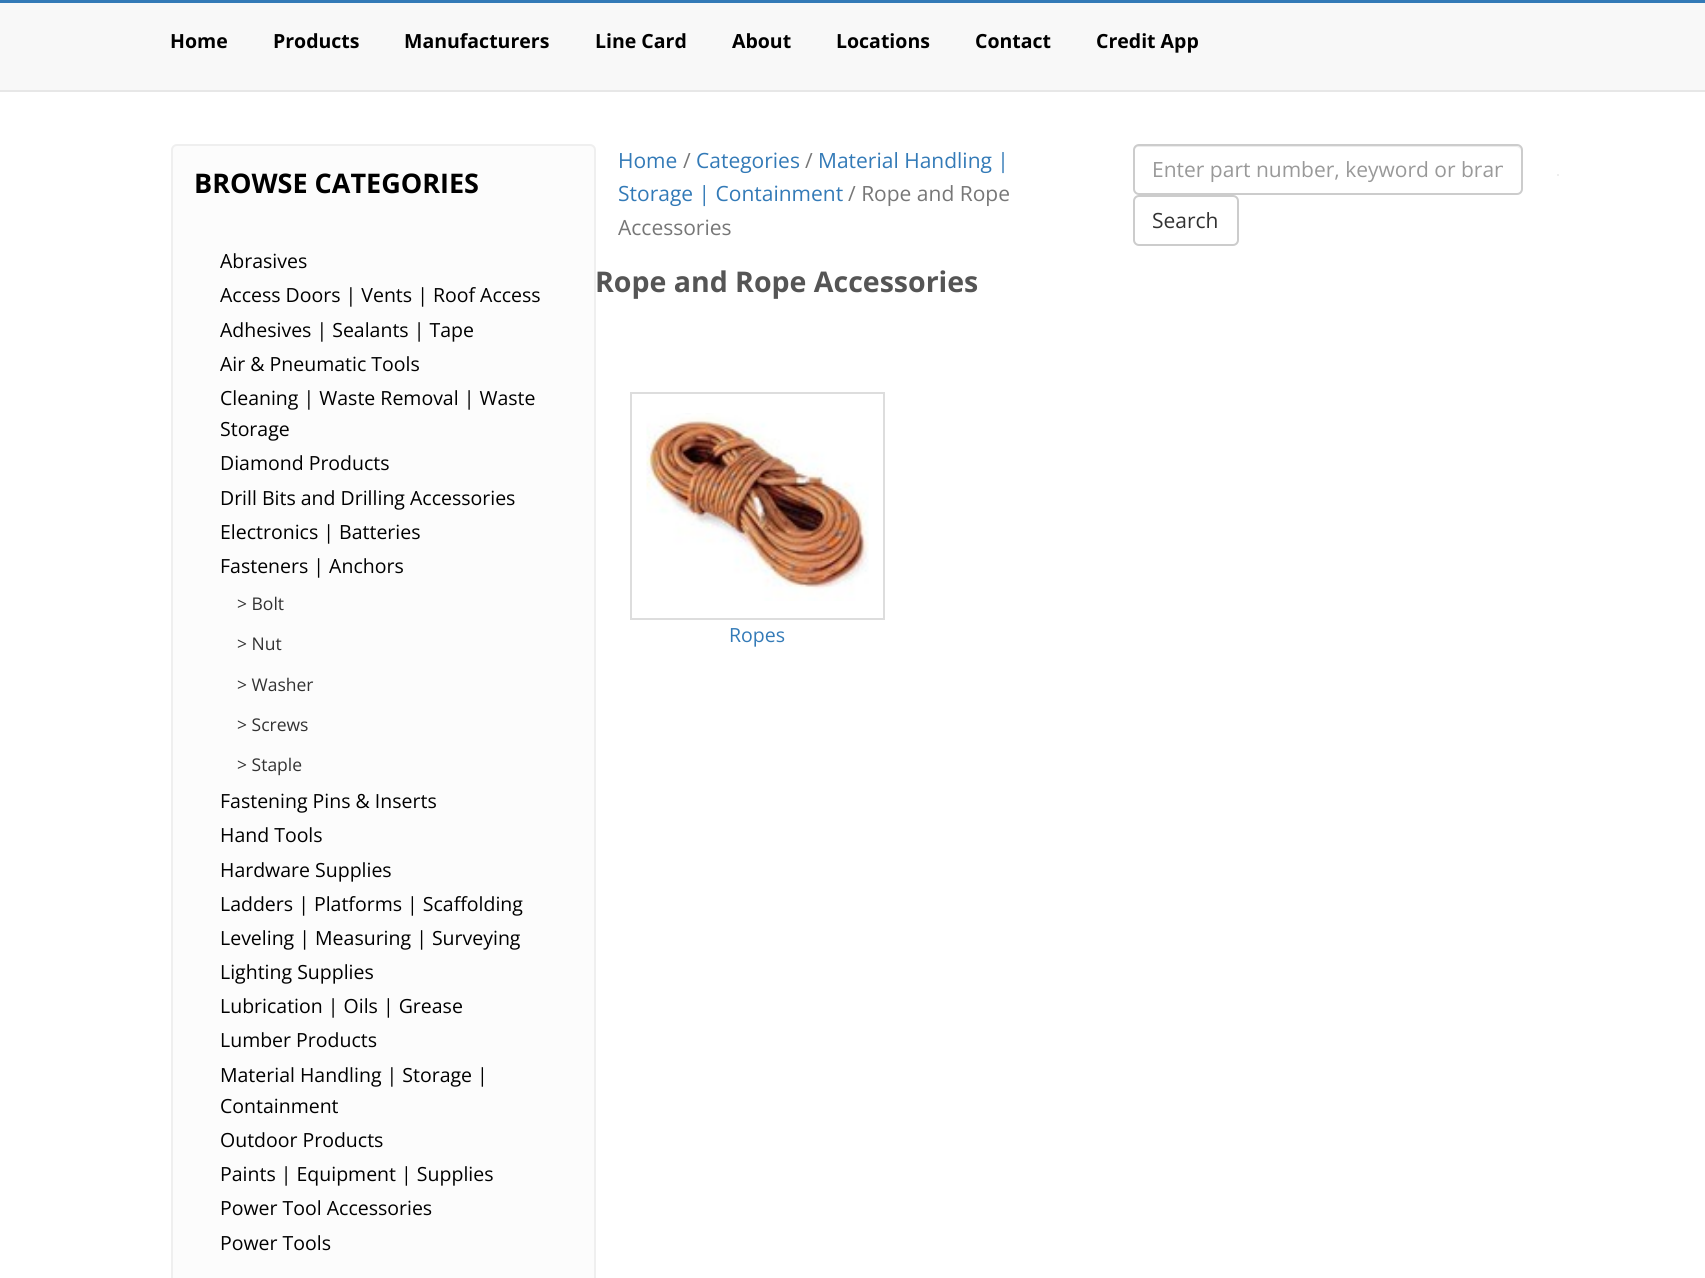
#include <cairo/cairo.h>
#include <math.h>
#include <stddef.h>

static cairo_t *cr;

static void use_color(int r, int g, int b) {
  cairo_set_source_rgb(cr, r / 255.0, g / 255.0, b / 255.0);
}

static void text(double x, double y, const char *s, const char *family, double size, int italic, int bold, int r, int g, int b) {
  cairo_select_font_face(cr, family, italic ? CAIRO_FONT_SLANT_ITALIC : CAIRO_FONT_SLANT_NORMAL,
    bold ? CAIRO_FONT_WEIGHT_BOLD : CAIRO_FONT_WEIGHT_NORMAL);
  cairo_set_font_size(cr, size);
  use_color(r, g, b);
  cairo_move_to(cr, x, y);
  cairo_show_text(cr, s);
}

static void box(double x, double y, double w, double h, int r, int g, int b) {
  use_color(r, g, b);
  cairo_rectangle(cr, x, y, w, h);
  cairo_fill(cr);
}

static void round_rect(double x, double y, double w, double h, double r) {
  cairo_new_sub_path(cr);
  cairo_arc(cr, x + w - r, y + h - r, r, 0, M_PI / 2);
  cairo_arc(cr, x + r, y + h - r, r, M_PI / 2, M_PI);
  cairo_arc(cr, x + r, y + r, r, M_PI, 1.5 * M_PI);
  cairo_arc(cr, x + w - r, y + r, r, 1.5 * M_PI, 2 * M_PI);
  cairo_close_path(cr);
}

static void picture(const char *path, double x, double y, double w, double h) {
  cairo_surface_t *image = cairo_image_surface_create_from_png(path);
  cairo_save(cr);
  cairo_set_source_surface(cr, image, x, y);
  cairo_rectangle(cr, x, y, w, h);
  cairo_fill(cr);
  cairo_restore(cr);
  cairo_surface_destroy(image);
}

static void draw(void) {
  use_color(255, 255, 255);
  cairo_paint(cr);
  box(0, 3, 1705, 87, 248, 248, 248);
  box(0, 90, 1705, 2, 231, 231, 231);
  box(0, 0, 1705, 3, 51, 122, 183);
  use_color(252, 252, 252);
  round_rect(172, 145, 423, 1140, 5);
  cairo_fill_preserve(cr);
  use_color(239, 239, 239);
  cairo_stroke(cr);
  use_color(236, 236, 236);
  cairo_new_path(cr);
  cairo_move_to(cr, 1138, 147);
  cairo_line_to(cr, 1516, 147);
  cairo_curve_to(cr, 1519, 147, 1521, 149, 1521, 152);
  cairo_line_to(cr, 1521, 151);
  cairo_curve_to(cr, 1521, 148, 1519, 146, 1516, 146);
  cairo_line_to(cr, 1139, 146);
  cairo_curve_to(cr, 1136, 146, 1134, 148, 1134, 151);
  cairo_line_to(cr, 1134, 152);
  cairo_curve_to(cr, 1134, 149, 1136, 147, 1138, 147);
  cairo_close_path(cr);
  cairo_fill(cr);
  round_rect(1134, 145, 388, 49, 5);
  use_color(204, 204, 204);
  cairo_stroke(cr);
  round_rect(1134, 196, 104, 49, 5);
  cairo_stroke(cr);
  cairo_rectangle(cr, 631, 393, 253, 226);
  use_color(221, 221, 221);
  cairo_stroke(cr);
  picture("img_01.png", 646, 413, 223, 188);
  box(1557, 174, 2, 2, 238, 238, 238);
  text(170, 48, "Home", "Open Sans", 19.5, 0, 1, 0, 0, 0);
  text(273, 48, "Products", "Open Sans", 19.5, 0, 1, 0, 0, 0);
  text(404, 48, "Manufacturers", "Open Sans", 19.5, 0, 1, 0, 0, 0);
  text(595, 48, "Line Card", "Open Sans", 19.5, 0, 1, 0, 0, 0);
  text(732, 48, "About", "Open Sans", 19.5, 0, 1, 0, 0, 0);
  text(836, 48, "Locations", "Open Sans", 19.5, 0, 1, 0, 0, 0);
  text(975, 48, "Contact", "Open Sans", 19.5, 0, 1, 0, 0, 0);
  text(1096, 48, "Credit App", "Open Sans", 19.5, 0, 1, 0, 0, 0);
  text(194, 193, "BROWSE CATEGORIES", "Open Sans", 27, 0, 1, 0, 0, 0);
  text(220, 268, "Abrasives", "Open Sans", 19.5, 0, 0, 0, 0, 0);
  text(220, 302, "Access Doors | Vents | Roof Access", "Open Sans", 19.5, 0, 0, 0, 0, 0);
  text(220, 337, "Adhesives | Sealants | Tape", "Open Sans", 19.5, 0, 0, 0, 0, 0);
  text(220, 371, "Air & Pneumatic Tools", "Open Sans", 19.5, 0, 0, 0, 0, 0);
  text(220, 405, "Cleaning | Waste Removal | Waste", "Open Sans", 19.5, 0, 0, 0, 0, 0);
  text(220, 436, "Storage", "Open Sans", 19.5, 0, 0, 0, 0, 0);
  text(220, 470, "Diamond Products", "Open Sans", 19.5, 0, 0, 0, 0, 0);
  text(220, 505, "Drill Bits and Drilling Accessories", "Open Sans", 19.5, 0, 0, 0, 0, 0);
  text(220, 539, "Electronics | Batteries", "Open Sans", 19.5, 0, 0, 0, 0, 0);
  text(220, 573, "Fasteners | Anchors", "Open Sans", 19.5, 0, 0, 0, 0, 0);
  text(237, 610, "> Bolt", "Open Sans", 17.5, 0, 0, 50, 50, 50);
  text(237, 650, "> Nut", "Open Sans", 17.5, 0, 0, 50, 50, 50);
  text(237, 691, "> Washer", "Open Sans", 17.5, 0, 0, 50, 50, 50);
  text(237, 731, "> Screws", "Open Sans", 17.5, 0, 0, 50, 50, 50);
  text(237, 771, "> Staple", "Open Sans", 17.5, 0, 0, 50, 50, 50);
  text(220, 808, "Fastening Pins & Inserts", "Open Sans", 19.5, 0, 0, 0, 0, 0);
  text(220, 842, "Hand Tools", "Open Sans", 19.5, 0, 0, 0, 0, 0);
  text(220, 877, "Hardware Supplies", "Open Sans", 19.5, 0, 0, 0, 0, 0);
  text(220, 911, "Ladders | Platforms | Scaffolding", "Open Sans", 19.5, 0, 0, 0, 0, 0);
  text(220, 945, "Leveling | Measuring | Surveying", "Open Sans", 19.5, 0, 0, 0, 0, 0);
  text(220, 979, "Lighting Supplies", "Open Sans", 19.5, 0, 0, 0, 0, 0);
  text(220, 1013, "Lubrication | Oils | Grease", "Open Sans", 19.5, 0, 0, 0, 0, 0);
  text(220, 1047, "Lumber Products", "Open Sans", 19.5, 0, 0, 0, 0, 0);
  text(220, 1082, "Material Handling | Storage |", "Open Sans", 19.5, 0, 0, 0, 0, 0);
  text(220, 1113, "Containment", "Open Sans", 19.5, 0, 0, 0, 0, 0);
  text(220, 1147, "Outdoor Products", "Open Sans", 19.5, 0, 0, 0, 0, 0);
  text(220, 1181, "Paints | Equipment | Supplies", "Open Sans", 19.5, 0, 0, 0, 0, 0);
  text(220, 1215, "Power Tool Accessories", "Open Sans", 19.5, 0, 0, 0, 0, 0);
  text(220, 1250, "Power Tools", "Open Sans", 19.5, 0, 0, 0, 0, 0);
  text(618, 168, "Home", "Open Sans", 21, 0, 0, 51, 122, 183);
  text(683, 168, "/", "Open Sans", 21, 0, 0, 119, 119, 119);
  text(696, 168, "Categories", "Open Sans", 21, 0, 0, 51, 122, 183);
  text(805, 168, "/", "Open Sans", 21, 0, 0, 119, 119, 119);
  text(818, 168, "Material Handling |", "Open Sans", 21, 0, 0, 51, 122, 183);
  text(618, 201, "Storage | Containment", "Open Sans", 21, 0, 0, 51, 122, 183);
  text(848, 201, "/ Rope and Rope", "Open Sans", 21, 0, 0, 119, 119, 119);
  text(618, 235, "Accessories", "Open Sans", 21, 0, 0, 119, 119, 119);
  cairo_save(cr);
  cairo_rectangle(cr, 1152, 155, 351, 28);
  cairo_clip(cr);
  text(1152, 177, "Enter part number, keyword or bran", "Open Sans", 21, 0, 0, 153, 153, 153);
  cairo_restore(cr);
  text(1152, 228, "Search", "Open Sans", 21, 0, 0, 50, 50, 50);
  text(595, 292, "Rope and Rope Accessories", "Open Sans", 28.5, 0, 1, 85, 85, 85);
  text(729, 642, "Ropes", "Open Sans", 19.5, 0, 0, 51, 122, 183);
}

int main(void) {
  cairo_surface_t *surface = cairo_image_surface_create(CAIRO_FORMAT_RGB24, 1705, 1278);
  cr = cairo_create(surface);
  cairo_font_options_t *options = cairo_font_options_create();
  cairo_font_options_set_hint_metrics(options, CAIRO_HINT_METRICS_OFF);
  cairo_font_options_set_hint_style(options, CAIRO_HINT_STYLE_NONE);
  cairo_set_font_options(cr, options);
  cairo_set_miter_limit(cr, 4);
  draw();
  cairo_surface_write_to_png(surface, "out.png");
  cairo_font_options_destroy(options);
  cairo_destroy(cr);
  cairo_surface_destroy(surface);
  return 0;
}
